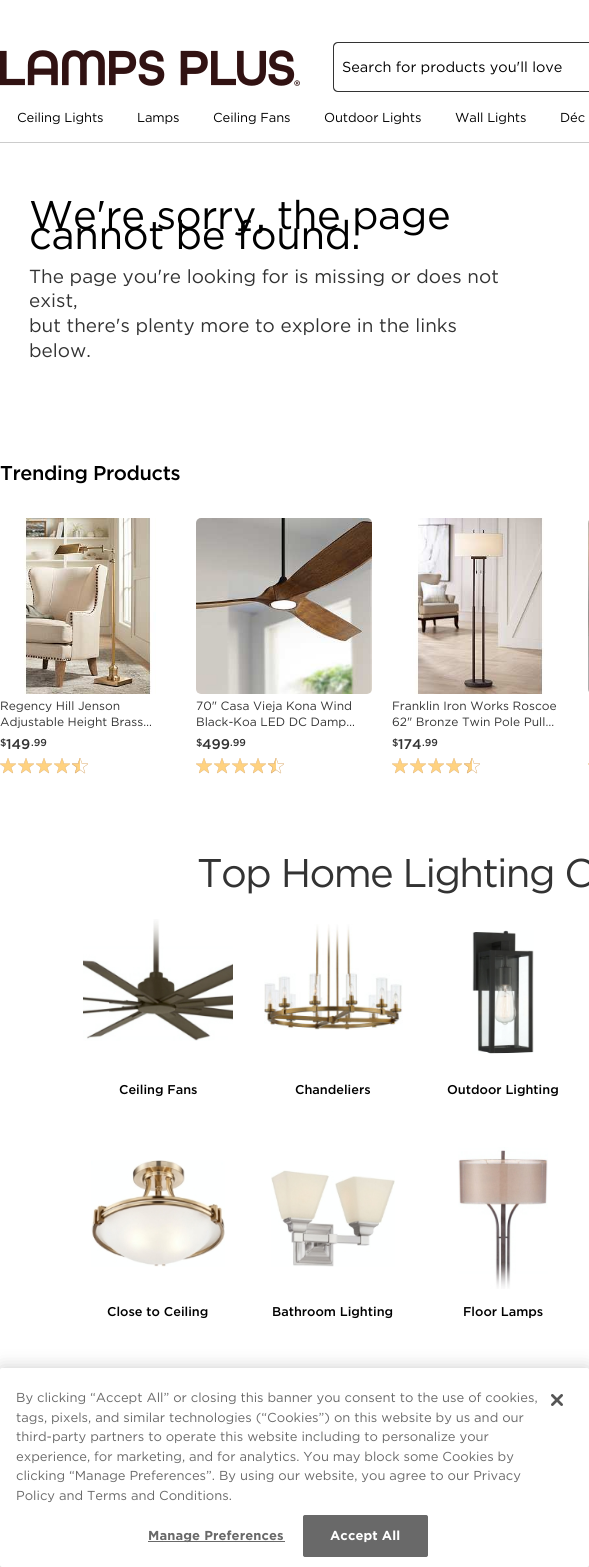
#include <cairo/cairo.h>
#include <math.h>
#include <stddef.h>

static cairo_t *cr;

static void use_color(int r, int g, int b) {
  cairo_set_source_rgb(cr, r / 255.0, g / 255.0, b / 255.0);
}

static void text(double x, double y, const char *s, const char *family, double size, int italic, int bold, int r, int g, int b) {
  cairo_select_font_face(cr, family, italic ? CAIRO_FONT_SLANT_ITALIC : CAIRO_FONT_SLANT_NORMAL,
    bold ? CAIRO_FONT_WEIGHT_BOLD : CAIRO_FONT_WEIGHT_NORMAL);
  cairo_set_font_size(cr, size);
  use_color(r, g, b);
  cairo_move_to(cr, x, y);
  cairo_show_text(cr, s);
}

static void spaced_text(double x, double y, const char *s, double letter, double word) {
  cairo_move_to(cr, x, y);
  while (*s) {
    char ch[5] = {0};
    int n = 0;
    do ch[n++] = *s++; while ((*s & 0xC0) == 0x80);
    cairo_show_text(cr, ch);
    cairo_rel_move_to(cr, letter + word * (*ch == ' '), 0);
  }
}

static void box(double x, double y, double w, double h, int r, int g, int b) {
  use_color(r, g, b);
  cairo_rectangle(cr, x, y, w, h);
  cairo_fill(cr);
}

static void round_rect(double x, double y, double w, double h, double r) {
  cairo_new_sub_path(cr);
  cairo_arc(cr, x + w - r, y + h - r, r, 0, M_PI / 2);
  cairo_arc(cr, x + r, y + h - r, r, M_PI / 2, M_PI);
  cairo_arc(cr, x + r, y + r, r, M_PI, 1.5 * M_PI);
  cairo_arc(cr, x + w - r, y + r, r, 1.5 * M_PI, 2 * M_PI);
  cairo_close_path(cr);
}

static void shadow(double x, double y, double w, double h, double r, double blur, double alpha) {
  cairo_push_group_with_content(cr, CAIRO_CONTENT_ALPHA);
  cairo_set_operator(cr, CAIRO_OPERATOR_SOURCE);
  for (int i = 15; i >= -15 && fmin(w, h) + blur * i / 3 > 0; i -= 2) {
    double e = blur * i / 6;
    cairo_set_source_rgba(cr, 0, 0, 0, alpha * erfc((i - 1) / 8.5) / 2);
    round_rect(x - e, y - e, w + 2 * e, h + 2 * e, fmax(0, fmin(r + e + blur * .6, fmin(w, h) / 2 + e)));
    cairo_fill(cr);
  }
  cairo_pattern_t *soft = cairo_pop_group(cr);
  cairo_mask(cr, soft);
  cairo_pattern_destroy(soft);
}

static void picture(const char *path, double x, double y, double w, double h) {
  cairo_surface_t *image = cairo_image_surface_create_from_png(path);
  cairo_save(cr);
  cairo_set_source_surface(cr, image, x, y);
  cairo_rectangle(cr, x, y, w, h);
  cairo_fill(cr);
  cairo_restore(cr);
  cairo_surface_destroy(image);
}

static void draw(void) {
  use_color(255, 255, 255);
  cairo_paint(cr);
  box(0, 142, 589, 1, 204, 204, 204);
  picture("img_01.png", 0, 50, 300, 36);
  use_color(51, 51, 51);
  cairo_set_fill_rule(cr, CAIRO_FILL_RULE_EVEN_ODD);
  cairo_new_path(cr);
  cairo_move_to(cr, 338, 42);
  cairo_line_to(cr, 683, 42);
  cairo_line_to(cr, 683, 92);
  cairo_line_to(cr, 338, 92);
  cairo_curve_to(cr, 335, 92, 333, 90, 333, 87);
  cairo_line_to(cr, 333, 47);
  cairo_curve_to(cr, 333, 44, 335, 42, 338, 42);
  cairo_close_path(cr);
  cairo_move_to(cr, 338, 43);
  cairo_line_to(cr, 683, 43);
  cairo_line_to(cr, 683, 91);
  cairo_line_to(cr, 338, 91);
  cairo_curve_to(cr, 336, 91, 334, 89, 334, 87);
  cairo_line_to(cr, 334, 47);
  cairo_curve_to(cr, 334, 45, 336, 43, 338, 43);
  cairo_close_path(cr);
  cairo_fill(cr);
  picture("img_02.png", 23, 518, 133, 176);
  picture("img_03.png", 0, 758, 16, 16);
  picture("img_03.png", 18, 758, 16, 16);
  picture("img_03.png", 36, 758, 16, 16);
  picture("img_03.png", 54, 758, 16, 16);
  picture("img_04.png", 72, 758, 16, 16);
  picture("img_05.png", 196, 518, 176, 176);
  picture("img_03.png", 196, 758, 16, 16);
  picture("img_03.png", 214, 758, 16, 16);
  picture("img_03.png", 232, 758, 16, 16);
  picture("img_03.png", 250, 758, 16, 16);
  picture("img_04.png", 268, 758, 16, 16);
  picture("img_06.png", 413, 518, 131, 176);
  picture("img_03.png", 392, 758, 16, 16);
  picture("img_03.png", 410, 758, 16, 16);
  picture("img_03.png", 428, 758, 16, 16);
  picture("img_03.png", 446, 758, 16, 16);
  picture("img_04.png", 464, 758, 16, 16);
  picture("img_07.png", 588, 520, 1, 172);
  picture("img_08.png", 588, 763, 1, 2);
  picture("img_09.png", 83, 919, 150, 122);
  picture("img_10.png", 264, 924, 139, 106);
  picture("img_11.png", 472, 930, 62, 124);
  picture("img_12.png", 91, 1160, 134, 107);
  picture("img_13.png", 271, 1170, 124, 97);
  picture("img_14.png", 458, 1147, 90, 142);
  box(0, 1565, 589, 2, 241, 241, 241);
  use_color(0, 0, 0);
  shadow(0, 1368, 589, 199, 2, 9, 0.2);
  use_color(255, 255, 255);
  round_rect(0, 1368, 589, 199, 2);
  cairo_fill(cr);
  box(148, 1541, 137, 1, 105, 105, 105);
  round_rect(303.5, 1515.5, 124, 41, 1.5);
  cairo_fill_preserve(cr);
  cairo_set_line_width(cr, 1);
  cairo_stroke(cr);
  picture("img_15.png", 551, 1394, 12, 12);
  text(342, 72, "Search for products you'll love", "Gotham", 14.5, 0, 0, 0, 0, 0);
  cairo_set_font_size(cr, 13);
  spaced_text(17, 122, "Ceiling Lights", -0.1, 0);
  spaced_text(137, 122, "Lamps", -0.1, 0);
  spaced_text(213, 122, "Ceiling Fans", -0.1, 0);
  spaced_text(324, 122, "Outdoor Lights", -0.1, 0);
  spaced_text(455, 122, "Wall Lights", -0.1, 0);
  spaced_text(560, 122, "Déc", -0.1, 0);
  cairo_set_font_size(cr, 40);
  spaced_text(29, 229, "We're sorry, the page", -0.4, 0);
  spaced_text(29, 249, "cannot be found.", -0.4, 0);
  text(29, 283, "The page you're looking for is missing or does not", "Gotham", 18.9, 0, 0, 51, 51, 51);
  text(29, 307, "exist,", "Gotham", 18.9, 0, 0, 51, 51, 51);
  text(29, 332, "but there's plenty more to explore in the links", "Gotham", 18.9, 0, 0, 51, 51, 51);
  text(29, 357, "below.", "Gotham", 18.9, 0, 0, 51, 51, 51);
  cairo_select_font_face(cr, "Gotham Medium", CAIRO_FONT_SLANT_NORMAL, CAIRO_FONT_WEIGHT_NORMAL);
  cairo_set_font_size(cr, 20);
  use_color(0, 0, 0);
  spaced_text(0, 480, "Trending Products", -0.4, 0);
  text(0, 710, "Regency Hill Jenson", "Gotham", 12, 0, 0, 51, 51, 51);
  text(0, 726, "Adjustable Height Brass…", "Gotham", 12, 0, 0, 51, 51, 51);
  text(0, 746, "$", "Gotham Medium", 10, 0, 0, 51, 51, 51);
  text(6, 749, "149", "Gotham Medium", 14, 0, 0, 51, 51, 51);
  text(31, 746, ".99", "Gotham Medium", 10, 0, 0, 51, 51, 51);
  text(196, 710, "70\" Casa Vieja Kona Wind", "Gotham", 12, 0, 0, 51, 51, 51);
  text(196, 726, "Black-Koa LED DC Damp…", "Gotham", 12, 0, 0, 51, 51, 51);
  text(196, 746, "$", "Gotham Medium", 10, 0, 0, 51, 51, 51);
  text(202, 749, "499", "Gotham Medium", 14, 0, 0, 51, 51, 51);
  text(230, 746, ".99", "Gotham Medium", 10, 0, 0, 51, 51, 51);
  text(392, 710, "Franklin Iron Works Roscoe", "Gotham", 12, 0, 0, 51, 51, 51);
  text(392, 726, "62\" Bronze Twin Pole Pull…", "Gotham", 12, 0, 0, 51, 51, 51);
  text(392, 746, "$", "Gotham Medium", 10, 0, 0, 51, 51, 51);
  text(398, 749, "174", "Gotham Medium", 14, 0, 0, 51, 51, 51);
  text(422, 746, ".99", "Gotham Medium", 10, 0, 0, 51, 51, 51);
  cairo_select_font_face(cr, "Gotham", CAIRO_FONT_SLANT_NORMAL, CAIRO_FONT_WEIGHT_NORMAL);
  cairo_set_font_size(cr, 40);
  spaced_text(197, 887, "Top Home Lighting C", -1.6, 0);
  text(119, 1094, "Ceiling Fans", "Gotham Medium", 12.75, 0, 0, 0, 0, 0);
  text(295, 1094, "Chandeliers", "Gotham Medium", 12.75, 0, 0, 0, 0, 0);
  text(447, 1094, "Outdoor Lighting", "Gotham Medium", 12.75, 0, 0, 0, 0, 0);
  text(107, 1316, "Close to Ceiling", "Gotham Medium", 12.75, 0, 0, 0, 0, 0);
  text(272, 1316, "Bathroom Lighting", "Gotham Medium", 12.75, 0, 0, 0, 0, 0);
  text(463, 1316, "Floor Lamps", "Gotham Medium", 12.75, 0, 0, 0, 0, 0);
  text(16, 1402, "By clicking “Accept All” or closing this banner you consent to the use of cookies,", "Gotham", 13, 0, 0, 105, 105, 105);
  text(16, 1422, "tags, pixels, and similar technologies (“Cookies”) on this website by us and our", "Gotham", 13, 0, 0, 105, 105, 105);
  text(16, 1441, "third-party partners to operate this website including to personalize your", "Gotham", 13, 0, 0, 105, 105, 105);
  text(16, 1461, "experience, for marketing, and for analytics. You may block some Cookies by", "Gotham", 13, 0, 0, 105, 105, 105);
  text(16, 1480, "clicking “Manage Preferences”. By using our website, you agree to our Privacy", "Gotham", 13, 0, 0, 105, 105, 105);
  text(16, 1500, "Policy and Terms and Conditions.", "Gotham", 13, 0, 0, 105, 105, 105);
  cairo_select_font_face(cr, "Gotham", CAIRO_FONT_SLANT_NORMAL, CAIRO_FONT_WEIGHT_BOLD);
  spaced_text(148, 1540, "Manage Preferences", 0.1, 0);
  use_color(255, 255, 255);
  spaced_text(330, 1540, "Accept All", 0.1, 0);
}

int main(void) {
  cairo_surface_t *surface = cairo_image_surface_create(CAIRO_FORMAT_RGB24, 589, 1567);
  cr = cairo_create(surface);
  cairo_font_options_t *options = cairo_font_options_create();
  cairo_font_options_set_hint_metrics(options, CAIRO_HINT_METRICS_OFF);
  cairo_font_options_set_hint_style(options, CAIRO_HINT_STYLE_NONE);
  cairo_set_font_options(cr, options);
  cairo_set_miter_limit(cr, 4);
  draw();
  cairo_surface_write_to_png(surface, "out.png");
  cairo_font_options_destroy(options);
  cairo_destroy(cr);
  cairo_surface_destroy(surface);
  return 0;
}
